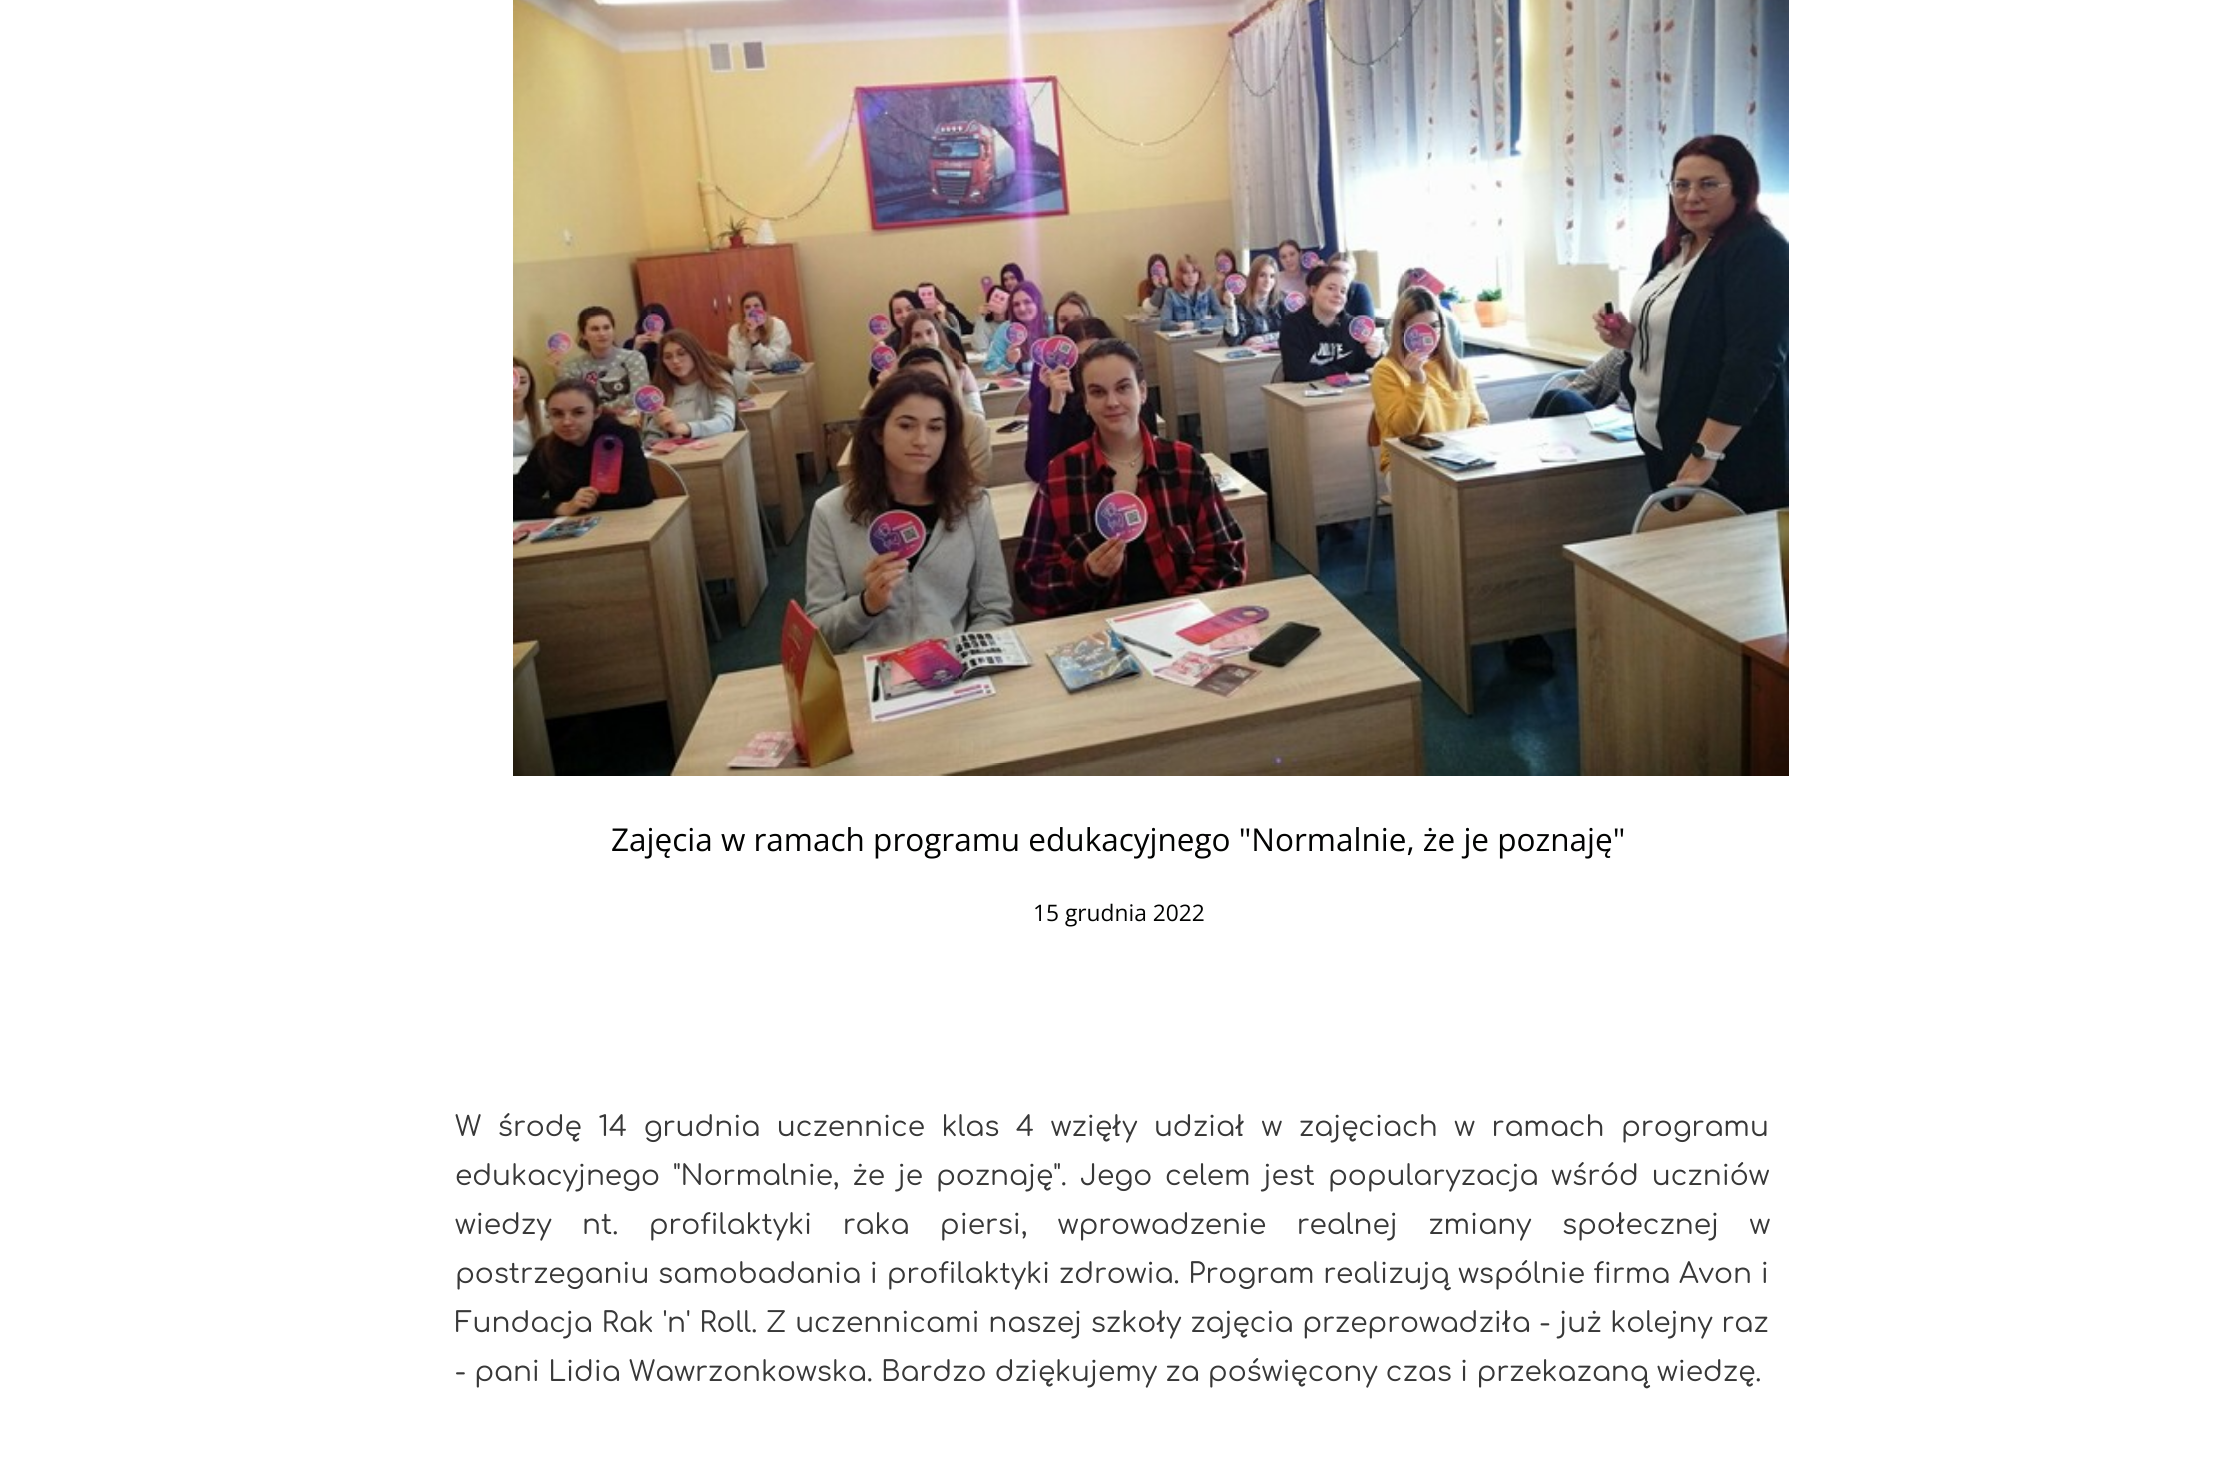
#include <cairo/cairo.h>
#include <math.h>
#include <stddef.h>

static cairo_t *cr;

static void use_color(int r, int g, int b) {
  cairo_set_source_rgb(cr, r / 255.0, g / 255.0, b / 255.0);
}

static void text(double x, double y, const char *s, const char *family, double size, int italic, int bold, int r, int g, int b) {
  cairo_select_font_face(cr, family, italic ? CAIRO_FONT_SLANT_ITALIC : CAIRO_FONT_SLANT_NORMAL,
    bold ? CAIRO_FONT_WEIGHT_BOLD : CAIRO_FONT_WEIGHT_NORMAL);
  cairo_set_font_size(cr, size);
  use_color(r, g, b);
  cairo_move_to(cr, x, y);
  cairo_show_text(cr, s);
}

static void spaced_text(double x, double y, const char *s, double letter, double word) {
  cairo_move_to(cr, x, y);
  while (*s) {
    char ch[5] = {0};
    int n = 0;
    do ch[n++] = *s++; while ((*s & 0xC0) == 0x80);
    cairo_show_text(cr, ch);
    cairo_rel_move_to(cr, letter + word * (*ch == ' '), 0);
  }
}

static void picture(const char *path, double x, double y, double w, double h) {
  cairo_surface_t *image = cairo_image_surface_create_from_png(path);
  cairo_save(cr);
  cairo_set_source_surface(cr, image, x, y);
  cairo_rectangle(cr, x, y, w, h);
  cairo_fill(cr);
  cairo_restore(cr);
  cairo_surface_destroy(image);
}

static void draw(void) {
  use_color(255, 255, 255);
  cairo_paint(cr);
  picture("img_01.png", 513, 0, 1276, 776);
  text(611, 851, "Zajęcia w ramach programu edukacyjnego \"Normalnie, że je poznaję\"", "Open Sans", 31.5, 0, 0, 2, 3, 2);
  text(1033, 921, "15 grudnia 2022", "Open Sans", 22.75, 0, 0, 2, 3, 2);
  cairo_select_font_face(cr, "Comfortaa", CAIRO_FONT_SLANT_NORMAL, CAIRO_FONT_WEIGHT_NORMAL);
  cairo_set_font_size(cr, 28);
  use_color(56, 56, 56);
  spaced_text(455, 1136, "W środę 14 grudnia uczennice klas 4 wzięły udział w zajęciach w ramach programu", 0, 8.4);
  spaced_text(455, 1185, "edukacyjnego \"Normalnie, że je poznaję\". Jego celem jest popularyzacja wśród uczniów", 0, 4.75);
  spaced_text(455, 1234, "wiedzy nt. profilaktyki raka piersi, wprowadzenie realnej zmiany społecznej w", 0, 22.25);
  spaced_text(455, 1283, "postrzeganiu samobadania i profilaktyki zdrowia. Program realizują wspólnie firma Avon i", 0, 0.5);
  spaced_text(455, 1332, "Fundacja Rak 'n' Roll. Z uczennicami naszej szkoły zajęcia przeprowadziła - już kolejny raz", 0, 0.6);
  text(455, 1381, "- pani Lidia Wawrzonkowska. Bardzo dziękujemy za poświęcony czas i przekazaną wiedzę.", "Comfortaa", 28, 0, 0, 56, 56, 56);
}

int main(void) {
  cairo_surface_t *surface = cairo_image_surface_create(CAIRO_FORMAT_RGB24, 2221, 1474);
  cr = cairo_create(surface);
  cairo_font_options_t *options = cairo_font_options_create();
  cairo_font_options_set_hint_metrics(options, CAIRO_HINT_METRICS_OFF);
  cairo_font_options_set_hint_style(options, CAIRO_HINT_STYLE_NONE);
  cairo_set_font_options(cr, options);
  cairo_set_miter_limit(cr, 4);
  draw();
  cairo_surface_write_to_png(surface, "out.png");
  cairo_font_options_destroy(options);
  cairo_destroy(cr);
  cairo_surface_destroy(surface);
  return 0;
}
